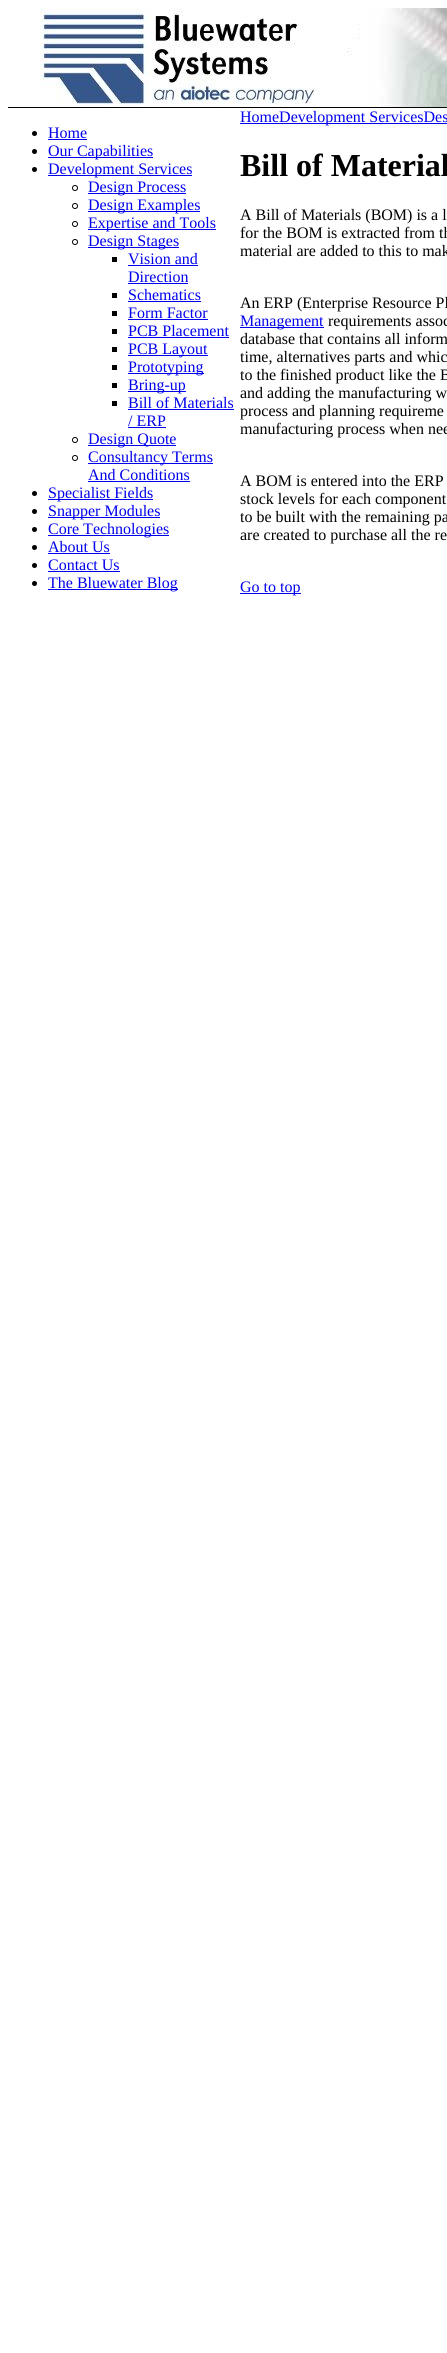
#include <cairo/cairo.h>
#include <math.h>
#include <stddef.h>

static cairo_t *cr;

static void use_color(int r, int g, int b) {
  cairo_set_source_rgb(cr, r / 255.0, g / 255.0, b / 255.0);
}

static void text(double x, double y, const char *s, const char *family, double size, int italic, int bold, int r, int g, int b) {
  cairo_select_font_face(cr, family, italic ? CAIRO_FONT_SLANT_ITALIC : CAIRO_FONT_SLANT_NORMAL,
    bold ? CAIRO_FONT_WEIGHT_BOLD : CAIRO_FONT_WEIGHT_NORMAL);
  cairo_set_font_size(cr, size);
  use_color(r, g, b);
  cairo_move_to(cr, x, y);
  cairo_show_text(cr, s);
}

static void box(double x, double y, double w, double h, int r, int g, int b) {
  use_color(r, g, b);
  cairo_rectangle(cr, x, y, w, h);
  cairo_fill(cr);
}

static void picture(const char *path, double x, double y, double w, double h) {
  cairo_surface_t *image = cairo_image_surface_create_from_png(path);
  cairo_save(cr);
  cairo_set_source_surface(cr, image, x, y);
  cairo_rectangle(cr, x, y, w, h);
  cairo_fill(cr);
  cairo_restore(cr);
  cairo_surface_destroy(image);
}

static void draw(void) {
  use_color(255, 255, 255);
  cairo_paint(cr);
  picture("img_01.png", 8, 8, 439, 100);
  use_color(0, 0, 0);
  cairo_arc(cr, 34.5, 133.5, 2.5, 0, 2 * M_PI);
  cairo_fill(cr);
  box(48, 139, 39, 1, 0, 0, 238);
  use_color(0, 0, 0);
  cairo_arc(cr, 34.5, 151.5, 2.5, 0, 2 * M_PI);
  cairo_fill(cr);
  box(48, 157, 105, 1, 0, 0, 238);
  use_color(0, 0, 0);
  cairo_arc(cr, 34.5, 169.5, 2.5, 0, 2 * M_PI);
  cairo_fill(cr);
  box(48, 175, 144, 1, 0, 0, 238);
  cairo_arc(cr, 75, 188, 2.5, 0, 2 * M_PI);
  use_color(0, 0, 0);
  cairo_set_line_width(cr, 1);
  cairo_stroke(cr);
  box(88, 193, 98, 1, 0, 0, 238);
  cairo_arc(cr, 75, 206, 2.5, 0, 2 * M_PI);
  use_color(0, 0, 0);
  cairo_stroke(cr);
  box(88, 211, 112, 1, 0, 0, 238);
  cairo_arc(cr, 75, 224, 2.5, 0, 2 * M_PI);
  use_color(0, 0, 0);
  cairo_stroke(cr);
  box(88, 229, 128, 1, 0, 0, 238);
  cairo_arc(cr, 75, 242, 2.5, 0, 2 * M_PI);
  use_color(0, 0, 0);
  cairo_stroke(cr);
  box(88, 247, 91, 1, 0, 0, 238);
  box(112, 257, 5, 5, 0, 0, 0);
  box(128, 265, 70, 1, 0, 0, 238);
  box(128, 283, 60, 1, 0, 0, 238);
  box(112, 293, 5, 5, 0, 0, 0);
  box(128, 301, 73, 1, 0, 0, 238);
  box(112, 311, 5, 5, 0, 0, 0);
  box(128, 319, 80, 1, 0, 0, 238);
  box(112, 329, 5, 5, 0, 0, 0);
  box(128, 337, 101, 1, 0, 0, 238);
  box(112, 347, 5, 5, 0, 0, 0);
  box(128, 355, 80, 1, 0, 0, 238);
  box(112, 365, 5, 5, 0, 0, 0);
  box(128, 373, 76, 1, 0, 0, 238);
  box(112, 383, 5, 5, 0, 0, 0);
  box(128, 391, 58, 1, 0, 0, 238);
  box(112, 401, 5, 5, 0, 0, 0);
  box(128, 409, 106, 1, 0, 0, 238);
  box(128, 427, 38, 1, 0, 0, 238);
  cairo_arc(cr, 75, 440, 2.5, 0, 2 * M_PI);
  use_color(0, 0, 0);
  cairo_stroke(cr);
  box(88, 445, 88, 1, 0, 0, 238);
  cairo_arc(cr, 75, 458, 2.5, 0, 2 * M_PI);
  use_color(0, 0, 0);
  cairo_stroke(cr);
  box(88, 463, 125, 1, 0, 0, 238);
  box(88, 481, 102, 1, 0, 0, 238);
  use_color(0, 0, 0);
  cairo_arc(cr, 34.5, 493.5, 2.5, 0, 2 * M_PI);
  cairo_fill(cr);
  box(48, 499, 105, 1, 0, 0, 238);
  use_color(0, 0, 0);
  cairo_arc(cr, 34.5, 511.5, 2.5, 0, 2 * M_PI);
  cairo_fill(cr);
  box(48, 517, 112, 1, 0, 0, 238);
  use_color(0, 0, 0);
  cairo_arc(cr, 34.5, 529.5, 2.5, 0, 2 * M_PI);
  cairo_fill(cr);
  box(48, 535, 121, 1, 0, 0, 238);
  use_color(0, 0, 0);
  cairo_arc(cr, 34.5, 547.5, 2.5, 0, 2 * M_PI);
  cairo_fill(cr);
  box(48, 553, 62, 1, 0, 0, 238);
  use_color(0, 0, 0);
  cairo_arc(cr, 34.5, 565.5, 2.5, 0, 2 * M_PI);
  cairo_fill(cr);
  box(48, 571, 72, 1, 0, 0, 238);
  use_color(0, 0, 0);
  cairo_arc(cr, 34.5, 583.5, 2.5, 0, 2 * M_PI);
  cairo_fill(cr);
  box(48, 589, 130, 1, 0, 0, 238);
  box(240, 123, 207, 1, 0, 0, 238);
  box(240, 327, 84, 1, 0, 0, 238);
  box(240, 593, 61, 1, 0, 0, 238);
  text(48, 138, "Home", "Liberation Serif", 16, 0, 0, 0, 0, 238);
  text(48, 156, "Our Capabilities", "Liberation Serif", 16, 0, 0, 0, 0, 238);
  text(48, 174, "Development Services", "Liberation Serif", 16, 0, 0, 0, 0, 238);
  text(88, 192, "Design Process", "Liberation Serif", 16, 0, 0, 0, 0, 238);
  text(88, 210, "Design Examples", "Liberation Serif", 16, 0, 0, 0, 0, 238);
  text(88, 228, "Expertise and Tools", "Liberation Serif", 16, 0, 0, 0, 0, 238);
  text(88, 246, "Design Stages", "Liberation Serif", 16, 0, 0, 0, 0, 238);
  text(128, 264, "Vision and", "Liberation Serif", 16, 0, 0, 0, 0, 238);
  text(128, 282, "Direction", "Liberation Serif", 16, 0, 0, 0, 0, 238);
  text(128, 300, "Schematics", "Liberation Serif", 16, 0, 0, 0, 0, 238);
  text(128, 318, "Form Factor", "Liberation Serif", 16, 0, 0, 0, 0, 238);
  text(128, 336, "PCB Placement", "Liberation Serif", 16, 0, 0, 0, 0, 238);
  text(128, 354, "PCB Layout", "Liberation Serif", 16, 0, 0, 0, 0, 238);
  text(128, 372, "Prototyping", "Liberation Serif", 16, 0, 0, 0, 0, 238);
  text(128, 390, "Bring-up", "Liberation Serif", 16, 0, 0, 0, 0, 238);
  text(128, 408, "Bill of Materials", "Liberation Serif", 16, 0, 0, 0, 0, 238);
  text(128, 426, "/ ERP", "Liberation Serif", 16, 0, 0, 0, 0, 238);
  text(88, 444, "Design Quote", "Liberation Serif", 16, 0, 0, 0, 0, 238);
  text(88, 462, "Consultancy Terms", "Liberation Serif", 16, 0, 0, 0, 0, 238);
  text(88, 480, "And Conditions", "Liberation Serif", 16, 0, 0, 0, 0, 238);
  text(48, 498, "Specialist Fields", "Liberation Serif", 16, 0, 0, 0, 0, 238);
  text(48, 516, "Snapper Modules", "Liberation Serif", 16, 0, 0, 0, 0, 238);
  text(48, 534, "Core Technologies", "Liberation Serif", 16, 0, 0, 0, 0, 238);
  text(48, 552, "About Us", "Liberation Serif", 16, 0, 0, 0, 0, 238);
  text(48, 570, "Contact Us", "Liberation Serif", 16, 0, 0, 0, 0, 238);
  text(48, 588, "The Bluewater Blog", "Liberation Serif", 16, 0, 0, 0, 0, 238);
  text(240, 122, "HomeDevelopment ServicesDes", "Liberation Serif", 16, 0, 0, 0, 0, 238);
  text(240, 176, "Bill of Material", "Liberation Serif", 32, 0, 1, 0, 0, 0);
  text(240, 220, "A Bill of Materials (BOM) is a l", "Liberation Serif", 16, 0, 0, 0, 0, 0);
  text(240, 238, "for the BOM is extracted from th", "Liberation Serif", 16, 0, 0, 0, 0, 0);
  text(240, 256, "material are added to this to mak", "Liberation Serif", 16, 0, 0, 0, 0, 0);
  text(240, 308, "An ERP (Enterprise Resource Pl", "Liberation Serif", 16, 0, 0, 0, 0, 0);
  text(240, 326, "Management", "Liberation Serif", 16, 0, 0, 0, 0, 238);
  text(328, 326, "requirements assoc", "Liberation Serif", 16, 0, 0, 0, 0, 0);
  text(240, 344, "database that contains all inform", "Liberation Serif", 16, 0, 0, 0, 0, 0);
  text(240, 362, "time, alternatives parts and whic", "Liberation Serif", 16, 0, 0, 0, 0, 0);
  text(240, 380, "to the finished product like the B", "Liberation Serif", 16, 0, 0, 0, 0, 0);
  text(240, 398, "and adding the manufacturing w", "Liberation Serif", 16, 0, 0, 0, 0, 0);
  text(240, 416, "process and planning requireme", "Liberation Serif", 16, 0, 0, 0, 0, 0);
  text(240, 434, "manufacturing process when nee", "Liberation Serif", 16, 0, 0, 0, 0, 0);
  text(240, 486, "A BOM is entered into the ERP", "Liberation Serif", 16, 0, 0, 0, 0, 0);
  text(240, 504, "stock levels for each component", "Liberation Serif", 16, 0, 0, 0, 0, 0);
  text(240, 522, "to be built with the remaining pa", "Liberation Serif", 16, 0, 0, 0, 0, 0);
  text(240, 540, "are created to purchase all the re", "Liberation Serif", 16, 0, 0, 0, 0, 0);
  text(240, 592, "Go to top", "Liberation Serif", 16, 0, 0, 0, 0, 238);
}

int main(void) {
  cairo_surface_t *surface = cairo_image_surface_create(CAIRO_FORMAT_RGB24, 447, 2353);
  cr = cairo_create(surface);
  cairo_font_options_t *options = cairo_font_options_create();
  cairo_font_options_set_hint_metrics(options, CAIRO_HINT_METRICS_OFF);
  cairo_font_options_set_hint_style(options, CAIRO_HINT_STYLE_NONE);
  cairo_set_font_options(cr, options);
  cairo_set_miter_limit(cr, 4);
  draw();
  cairo_surface_write_to_png(surface, "out.png");
  cairo_font_options_destroy(options);
  cairo_destroy(cr);
  cairo_surface_destroy(surface);
  return 0;
}
